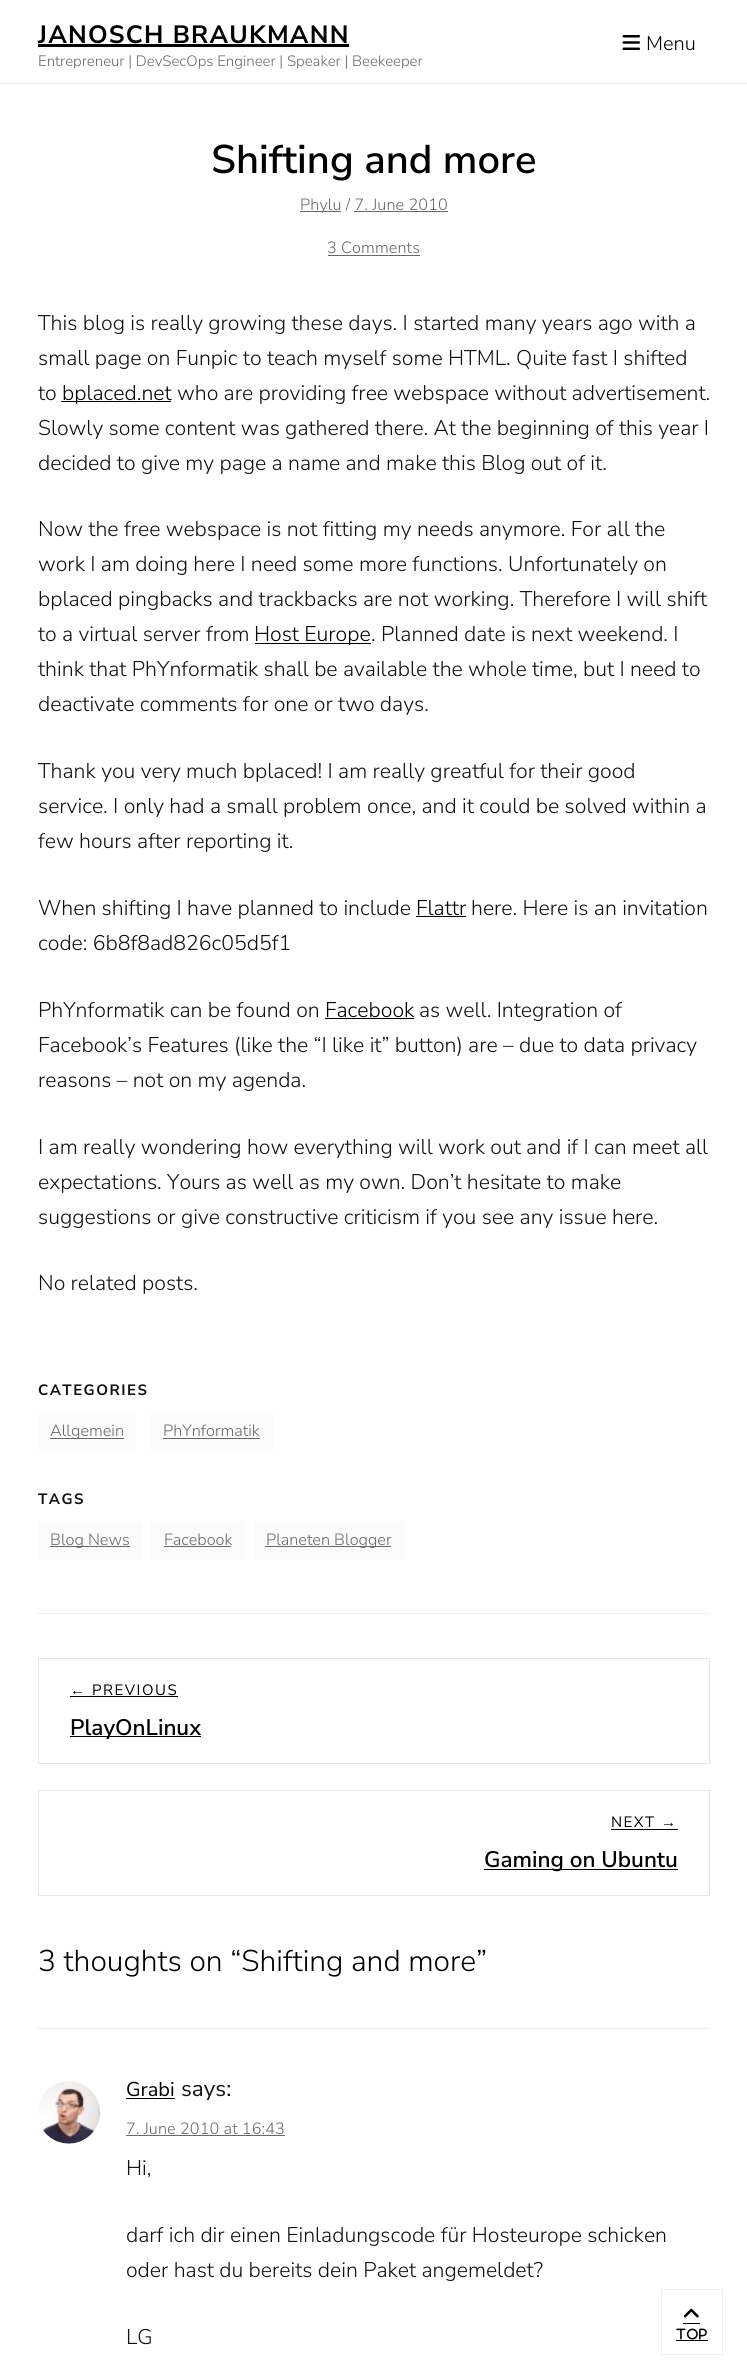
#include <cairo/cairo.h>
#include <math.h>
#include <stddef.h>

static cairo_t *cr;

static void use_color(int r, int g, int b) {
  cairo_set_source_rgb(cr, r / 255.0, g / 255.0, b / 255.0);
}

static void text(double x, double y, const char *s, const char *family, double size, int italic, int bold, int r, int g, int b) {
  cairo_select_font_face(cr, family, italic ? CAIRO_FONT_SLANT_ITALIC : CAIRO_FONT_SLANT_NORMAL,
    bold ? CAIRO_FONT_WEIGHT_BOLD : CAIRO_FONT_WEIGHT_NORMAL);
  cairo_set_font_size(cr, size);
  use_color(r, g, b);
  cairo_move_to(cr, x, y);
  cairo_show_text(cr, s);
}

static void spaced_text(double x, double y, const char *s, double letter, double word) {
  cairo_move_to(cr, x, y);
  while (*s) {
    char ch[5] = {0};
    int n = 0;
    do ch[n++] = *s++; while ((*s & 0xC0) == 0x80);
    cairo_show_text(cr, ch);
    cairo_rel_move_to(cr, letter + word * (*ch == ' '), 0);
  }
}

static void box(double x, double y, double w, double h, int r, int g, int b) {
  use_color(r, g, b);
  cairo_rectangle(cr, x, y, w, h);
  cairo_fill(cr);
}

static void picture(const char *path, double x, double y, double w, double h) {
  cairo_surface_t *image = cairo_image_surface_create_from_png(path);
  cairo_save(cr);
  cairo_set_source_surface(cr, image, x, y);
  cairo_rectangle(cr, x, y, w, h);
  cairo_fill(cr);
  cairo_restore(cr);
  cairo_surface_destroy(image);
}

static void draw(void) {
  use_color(255, 255, 255);
  cairo_paint(cr);
  box(38, 44, 311, 3, 0, 0, 0);
  picture("img_01.png", 622, 35, 18, 15);
  box(0, 83, 747, 1, 238, 238, 238);
  box(38, 1613, 672, 1, 238, 238, 238);
  box(300, 211, 41, 1, 104, 104, 104);
  box(354, 211, 94, 1, 104, 104, 104);
  box(328, 255, 92, 1, 104, 104, 104);
  box(61, 401, 110, 1, 0, 0, 0);
  box(255, 643, 116, 1, 0, 0, 0);
  box(416, 916, 50, 1, 0, 0, 0);
  box(325, 1018, 89, 1, 0, 0, 0);
  box(38, 1413, 98, 38, 251, 251, 251);
  box(50, 1438, 74, 1, 104, 104, 104);
  box(150, 1413, 123, 38, 251, 251, 251);
  box(163, 1438, 97, 1, 104, 104, 104);
  box(38, 1521, 105, 39, 251, 251, 251);
  box(50, 1546, 80, 1, 104, 104, 104);
  box(151, 1521, 93, 39, 251, 251, 251);
  box(164, 1546, 67, 1, 104, 104, 104);
  box(253, 1521, 151, 39, 251, 251, 251);
  box(265, 1546, 126, 1, 104, 104, 104);
  cairo_rectangle(cr, 38.5, 1658.5, 671, 105);
  use_color(230, 230, 230);
  cairo_set_line_width(cr, 1);
  cairo_stroke(cr);
  box(70, 1696, 108, 1, 0, 0, 0);
  box(70, 1736, 131, 1, 0, 0, 0);
  cairo_rectangle(cr, 38.5, 1790.5, 671, 105);
  use_color(230, 230, 230);
  cairo_stroke(cr);
  box(611, 1829, 67, 1, 0, 0, 0);
  box(484, 1869, 194, 1, 0, 0, 0);
  box(38, 2028, 672, 1, 238, 238, 238);
  picture("img_02.png", 38, 2081, 62, 63);
  box(126, 2098, 49, 1, 0, 0, 0);
  box(126, 2135, 159, 1, 104, 104, 104);
  cairo_rectangle(cr, 661.5, 2289.5, 61, 65);
  use_color(238, 238, 238);
  cairo_stroke(cr);
  picture("img_03.png", 683, 2308, 16, 10);
  box(683, 2323, 17, 1, 0, 0, 0);
  picture("img_04.png", 676, 2328, 31, 12);
  box(676, 2340, 32, 1, 0, 0, 0);
  cairo_select_font_face(cr, "Nunito Sans", CAIRO_FONT_SLANT_NORMAL, CAIRO_FONT_WEIGHT_BOLD);
  cairo_set_font_size(cr, 25);
  spaced_text(38, 43, "JANOSCH BRAUKMANN", 1.25, 0);
  text(38, 66, "Entrepreneur | DevSecOps Engineer | Speaker | Beekeeper", "Nunito Sans Light", 15, 0, 0, 104, 104, 104);
  text(646, 50, "Menu", "Nunito Sans Light", 20, 0, 0, 0, 0, 0);
  text(211, 173, "Shifting and more", "Nunito Sans SemiBold", 40, 0, 0, 0, 0, 0);
  cairo_select_font_face(cr, "Nunito Sans Light", CAIRO_FONT_SLANT_NORMAL, CAIRO_FONT_WEIGHT_NORMAL);
  cairo_set_font_size(cr, 16.25);
  use_color(104, 104, 104);
  spaced_text(300, 210, "Phylu / 7. June 2010", 0.1, 0);
  spaced_text(327, 253, "3 Comments", 0.1, 0);
  text(38, 330, "This blog is really growing these days. I started many years ago with a", "Nunito Sans Light", 21.25, 0, 0, 17, 17, 17);
  text(38, 365, "small page on Funpic to teach myself some HTML. Quite fast I shifted", "Nunito Sans Light", 21.25, 0, 0, 17, 17, 17);
  text(38, 400, "to", "Nunito Sans Light", 21.25, 0, 0, 17, 17, 17);
  text(62, 400, "bplaced.net", "Nunito Sans Light", 21.25, 0, 0, 0, 0, 0);
  text(177, 400, "who are providing free webspace without advertisement.", "Nunito Sans Light", 21.25, 0, 0, 17, 17, 17);
  text(38, 435, "Slowly some content was gathered there. At the beginning of this year I", "Nunito Sans Light", 21.25, 0, 0, 17, 17, 17);
  text(38, 470, "decided to give my page a name and make this Blog out of it.", "Nunito Sans Light", 21.25, 0, 0, 17, 17, 17);
  text(38, 536, "Now the free webspace is not fitting my needs anymore. For all the", "Nunito Sans Light", 21.25, 0, 0, 17, 17, 17);
  text(38, 571, "work I am doing here I need some more functions. Unfortunately on", "Nunito Sans Light", 21.25, 0, 0, 17, 17, 17);
  text(38, 606, "bplaced pingbacks and trackbacks are not working. Therefore I will shift", "Nunito Sans Light", 21.25, 0, 0, 17, 17, 17);
  text(38, 641, "to a virtual server from", "Nunito Sans Light", 21.25, 0, 0, 17, 17, 17);
  text(254, 641, "Host Europe", "Nunito Sans Light", 21.25, 0, 0, 0, 0, 0);
  text(371, 641, ". Planned date is next weekend. I", "Nunito Sans Light", 21.25, 0, 0, 17, 17, 17);
  text(38, 676, "think that PhYnformatik shall be available the whole time, but I need to", "Nunito Sans Light", 21.25, 0, 0, 17, 17, 17);
  text(38, 711, "deactivate comments for one or two days.", "Nunito Sans Light", 21.25, 0, 0, 17, 17, 17);
  text(38, 778, "Thank you very much bplaced! I am really greatful for their good", "Nunito Sans Light", 21.25, 0, 0, 17, 17, 17);
  text(38, 813, "service. I only had a small problem once, and it could be solved within a", "Nunito Sans Light", 21.25, 0, 0, 17, 17, 17);
  text(38, 848, "few hours after reporting it.", "Nunito Sans Light", 21.25, 0, 0, 17, 17, 17);
  text(38, 915, "When shifting I have planned to include", "Nunito Sans Light", 21.25, 0, 0, 17, 17, 17);
  text(416, 915, "Flattr", "Nunito Sans Light", 21.25, 0, 0, 0, 0, 0);
  text(471, 915, "here. Here is an invitation", "Nunito Sans Light", 21.25, 0, 0, 17, 17, 17);
  text(38, 950, "code: 6b8f8ad826c05d5f1", "Nunito Sans Light", 21.25, 0, 0, 17, 17, 17);
  text(38, 1017, "PhYnformatik can be found on", "Nunito Sans Light", 21.25, 0, 0, 17, 17, 17);
  text(325, 1017, "Facebook", "Nunito Sans Light", 21.25, 0, 0, 0, 0, 0);
  text(419, 1017, "as well. Integration of", "Nunito Sans Light", 21.25, 0, 0, 17, 17, 17);
  text(38, 1052, "Facebook’s Features (like the “I like it” button) are – due to data privacy", "Nunito Sans Light", 21.25, 0, 0, 17, 17, 17);
  text(38, 1087, "reasons – not on my agenda.", "Nunito Sans Light", 21.25, 0, 0, 17, 17, 17);
  text(38, 1154, "I am really wondering how everything will work out and if I can meet all", "Nunito Sans Light", 21.25, 0, 0, 17, 17, 17);
  text(38, 1189, "expectations. Yours as well as my own. Don’t hesitate to make", "Nunito Sans Light", 21.25, 0, 0, 17, 17, 17);
  text(38, 1224, "suggestions or give constructive criticism if you see any issue here.", "Nunito Sans Light", 21.25, 0, 0, 17, 17, 17);
  text(38, 1290, "No related posts.", "Nunito Sans Light", 21.25, 0, 0, 17, 17, 17);
  cairo_select_font_face(cr, "Nunito Sans", CAIRO_FONT_SLANT_NORMAL, CAIRO_FONT_WEIGHT_BOLD);
  cairo_set_font_size(cr, 15);
  spaced_text(38, 1395, "CATEGORIES", 1.5, 0);
  text(50, 1436, "Allgemein", "Nunito Sans Light", 16.25, 0, 0, 104, 104, 104);
  text(163, 1436, "PhYnformatik", "Nunito Sans Light", 16.25, 0, 0, 104, 104, 104);
  cairo_select_font_face(cr, "Nunito Sans", CAIRO_FONT_SLANT_NORMAL, CAIRO_FONT_WEIGHT_BOLD);
  cairo_set_font_size(cr, 15);
  use_color(17, 17, 17);
  spaced_text(38, 1504, "TAGS", 1.5, 0);
  text(50, 1545, "Blog News", "Nunito Sans Light", 16.25, 0, 0, 104, 104, 104);
  text(164, 1545, "Facebook", "Nunito Sans Light", 16.25, 0, 0, 104, 104, 104);
  text(266, 1545, "Planeten Blogger", "Nunito Sans Light", 16.25, 0, 0, 104, 104, 104);
  cairo_select_font_face(cr, "Liberation Sans", CAIRO_FONT_SLANT_NORMAL, CAIRO_FONT_WEIGHT_NORMAL);
  cairo_set_font_size(cr, 15);
  use_color(0, 0, 0);
  spaced_text(70, 1695, "←", 1.5, 0);
  cairo_select_font_face(cr, "Nunito Sans", CAIRO_FONT_SLANT_NORMAL, CAIRO_FONT_WEIGHT_NORMAL);
  spaced_text(92, 1695, "PREVIOUS", 1.5, 0);
  text(70, 1735, "PlayOnLinux", "Nunito Sans SemiBold", 22.5, 0, 0, 0, 0, 0);
  cairo_select_font_face(cr, "Nunito Sans", CAIRO_FONT_SLANT_NORMAL, CAIRO_FONT_WEIGHT_NORMAL);
  cairo_set_font_size(cr, 15);
  spaced_text(611, 1827, "NEXT", 1.5, 0);
  cairo_select_font_face(cr, "Liberation Sans", CAIRO_FONT_SLANT_NORMAL, CAIRO_FONT_WEIGHT_NORMAL);
  spaced_text(661, 1827, "→", 1.5, 0);
  text(484, 1867, "Gaming on Ubuntu", "Nunito Sans SemiBold", 22.5, 0, 0, 0, 0, 0);
  text(38, 1971, "3 thoughts on “Shifting and more”", "Nunito Sans Light", 30, 0, 0, 0, 0, 0);
  text(126, 2096, "Grabi", "Nunito Sans", 20, 0, 0, 0, 0, 0);
  text(181, 2096, "says:", "Nunito Sans", 22.5, 0, 0, 17, 17, 17);
  cairo_select_font_face(cr, "Nunito Sans Light", CAIRO_FONT_SLANT_NORMAL, CAIRO_FONT_WEIGHT_NORMAL);
  cairo_set_font_size(cr, 16.25);
  use_color(104, 104, 104);
  spaced_text(126, 2134, "7. June 2010 at 16:43", 0.1, 0);
  text(126, 2175, "Hi,", "Nunito Sans Light", 21.25, 0, 0, 17, 17, 17);
  text(126, 2242, "darf ich dir einen Einladungscode für Hosteurope schicken", "Nunito Sans Light", 21.25, 0, 0, 17, 17, 17);
  text(126, 2277, "oder hast du bereits dein Paket angemeldet?", "Nunito Sans Light", 21.25, 0, 0, 17, 17, 17);
  text(126, 2344, "LG", "Nunito Sans Light", 21.25, 0, 0, 17, 17, 17);
}

int main(void) {
  cairo_surface_t *surface = cairo_image_surface_create(CAIRO_FORMAT_RGB24, 747, 2380);
  cr = cairo_create(surface);
  cairo_font_options_t *options = cairo_font_options_create();
  cairo_font_options_set_hint_metrics(options, CAIRO_HINT_METRICS_OFF);
  cairo_font_options_set_hint_style(options, CAIRO_HINT_STYLE_NONE);
  cairo_set_font_options(cr, options);
  cairo_set_miter_limit(cr, 4);
  draw();
  cairo_surface_write_to_png(surface, "out.png");
  cairo_font_options_destroy(options);
  cairo_destroy(cr);
  cairo_surface_destroy(surface);
  return 0;
}
